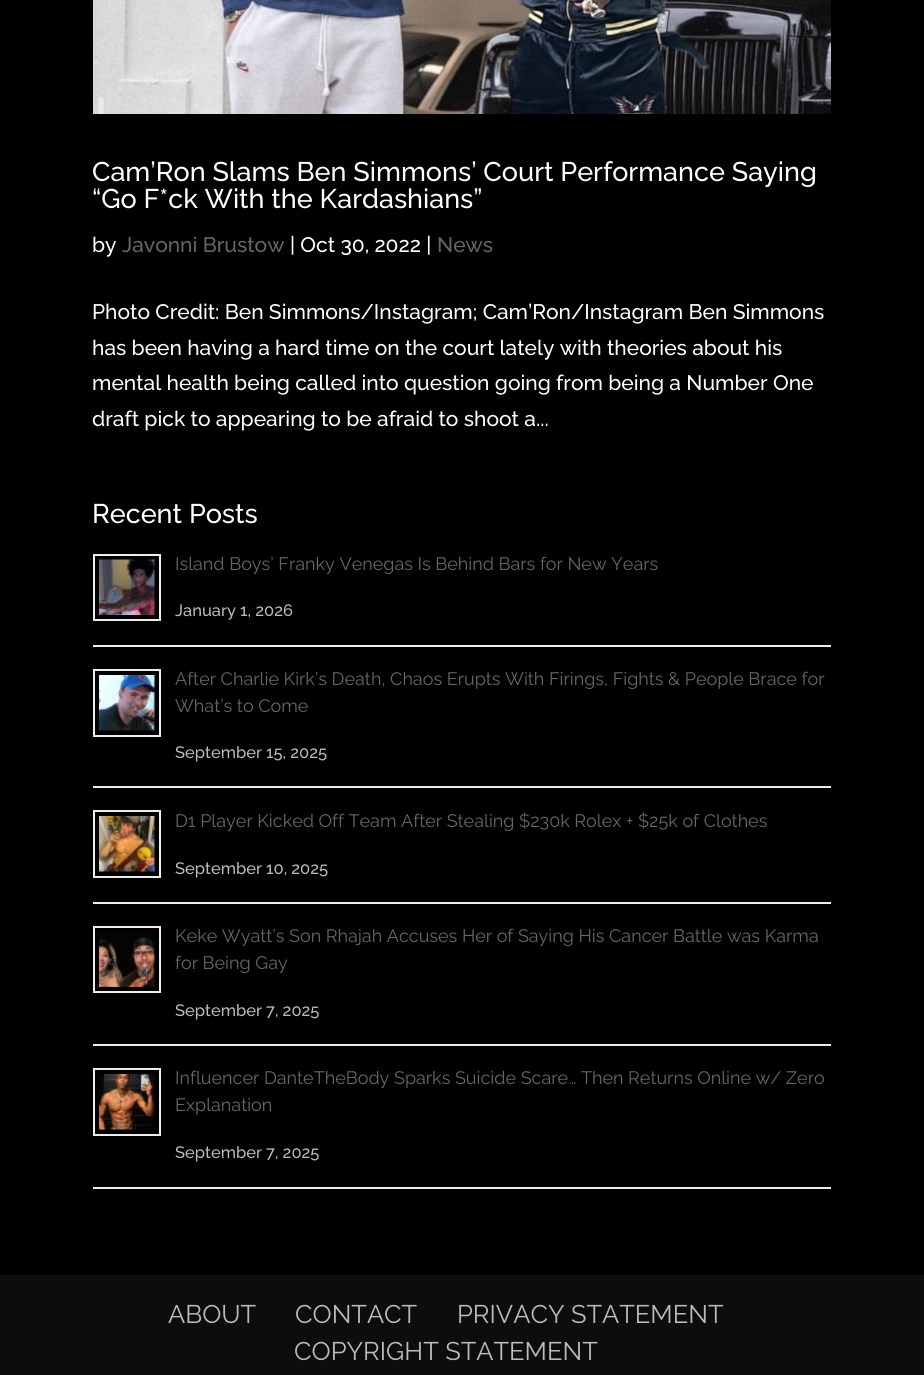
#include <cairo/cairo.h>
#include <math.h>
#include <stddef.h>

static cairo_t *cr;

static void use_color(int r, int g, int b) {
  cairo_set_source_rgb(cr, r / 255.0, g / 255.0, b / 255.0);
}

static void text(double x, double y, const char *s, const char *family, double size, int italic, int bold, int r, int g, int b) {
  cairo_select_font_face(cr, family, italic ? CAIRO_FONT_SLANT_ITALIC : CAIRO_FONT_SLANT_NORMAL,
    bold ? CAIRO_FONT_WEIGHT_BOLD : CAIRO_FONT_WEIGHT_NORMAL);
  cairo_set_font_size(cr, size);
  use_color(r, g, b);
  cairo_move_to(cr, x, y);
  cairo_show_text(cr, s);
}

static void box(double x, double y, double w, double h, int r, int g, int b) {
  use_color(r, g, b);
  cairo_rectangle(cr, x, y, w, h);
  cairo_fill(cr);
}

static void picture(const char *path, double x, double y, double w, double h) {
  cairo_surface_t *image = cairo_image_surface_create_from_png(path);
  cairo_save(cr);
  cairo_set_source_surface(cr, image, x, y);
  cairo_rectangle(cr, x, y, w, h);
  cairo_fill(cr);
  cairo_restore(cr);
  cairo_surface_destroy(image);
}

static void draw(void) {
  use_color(0, 0, 0);
  cairo_paint(cr);
  picture("img_01.png", 93, 0, 738, 114);
  box(93, 645, 738, 2, 238, 238, 238);
  cairo_rectangle(cr, 94, 555, 66, 65);
  cairo_stroke(cr);
  picture("img_02.png", 99, 559, 56, 56);
  box(93, 786, 738, 2, 238, 238, 238);
  cairo_rectangle(cr, 94, 670, 66, 66);
  cairo_stroke(cr);
  picture("img_03.png", 99, 675, 56, 56);
  box(93, 902, 738, 2, 238, 238, 238);
  cairo_rectangle(cr, 94, 811, 66, 66);
  cairo_stroke(cr);
  picture("img_04.png", 99, 816, 56, 56);
  box(93, 1044, 738, 2, 238, 238, 238);
  cairo_rectangle(cr, 94, 927, 66, 65);
  cairo_stroke(cr);
  picture("img_05.png", 99, 931, 56, 56);
  box(93, 1187, 738, 2, 238, 238, 238);
  cairo_rectangle(cr, 94, 1069, 66, 66);
  cairo_stroke(cr);
  picture("img_06.png", 99, 1074, 56, 56);
  box(0, 1275, 924, 100, 13, 13, 13);
  text(92, 181, "Cam’Ron Slams Ben Simmons’ Court Performance Saying", "Raleway Thin", 27, 0, 0, 255, 255, 255);
  text(92, 208, "“Go F*ck With the Kardashians”", "Raleway Thin", 27, 0, 0, 255, 255, 255);
  text(92, 252, "by", "Raleway Thin", 21, 0, 0, 255, 255, 255);
  text(122, 252, "Javonni Brustow", "Raleway Thin", 21, 0, 0, 102, 102, 102);
  text(290, 252, "| Oct 30, 2022 |", "Raleway Thin", 21, 0, 0, 255, 255, 255);
  text(437, 252, "News", "Raleway Thin", 21, 0, 0, 102, 102, 102);
  text(92, 319, "Photo Credit: Ben Simmons/Instagram; Cam’Ron/Instagram Ben Simmons", "Raleway Thin", 21, 0, 0, 255, 255, 255);
  text(92, 355, "has been having a hard time on the court lately with theories about his", "Raleway Thin", 21, 0, 0, 255, 255, 255);
  text(92, 390, "mental health being called into question going from being a Number One", "Raleway Thin", 21, 0, 0, 255, 255, 255);
  text(92, 426, "draft pick to appearing to be afraid to shoot a...", "Raleway Thin", 21, 0, 0, 255, 255, 255);
  text(92, 523, "Recent Posts", "Raleway Thin", 27, 0, 0, 255, 255, 255);
  text(175, 570, "Island Boys’ Franky Venegas Is Behind Bars for New Years", "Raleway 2 Thin", 18, 0, 0, 102, 102, 102);
  text(175, 616, "January 1, 2026", "Raleway Thin", 16.5, 0, 0, 187, 187, 187);
  text(175, 685, "After Charlie Kirk’s Death, Chaos Erupts With Firings, Fights & People Brace for", "Raleway 2 Thin", 18, 0, 0, 102, 102, 102);
  text(175, 712, "What’s to Come", "Raleway 2 Thin", 18, 0, 0, 102, 102, 102);
  text(175, 758, "September 15, 2025", "Raleway Thin", 16.5, 0, 0, 187, 187, 187);
  text(175, 827, "D1 Player Kicked Off Team After Stealing $230k Rolex + $25k of Clothes", "Raleway 2 Thin", 18, 0, 0, 102, 102, 102);
  text(175, 874, "September 10, 2025", "Raleway Thin", 16.5, 0, 0, 187, 187, 187);
  text(175, 942, "Keke Wyatt’s Son Rhajah Accuses Her of Saying His Cancer Battle was Karma", "Raleway 2 Thin", 18, 0, 0, 102, 102, 102);
  text(175, 969, "for Being Gay", "Raleway 2 Thin", 18, 0, 0, 102, 102, 102);
  text(175, 1016, "September 7, 2025", "Raleway Thin", 16.5, 0, 0, 187, 187, 187);
  text(175, 1084, "Influencer DanteTheBody Sparks Suicide Scare… Then Returns Online w/ Zero", "Raleway 2 Thin", 18, 0, 0, 102, 102, 102);
  text(175, 1111, "Explanation", "Raleway 2 Thin", 18, 0, 0, 102, 102, 102);
  text(175, 1158, "September 7, 2025", "Raleway Thin", 16.5, 0, 0, 187, 187, 187);
  text(168, 1323, "ABOUT", "Raleway 2 Thin", 25.5, 0, 0, 187, 187, 187);
  text(295, 1323, "CONTACT", "Raleway 2 Thin", 25.5, 0, 0, 187, 187, 187);
  text(457, 1323, "PRIVACY STATEMENT", "Raleway 2 Thin", 25.5, 0, 0, 187, 187, 187);
  text(294, 1360, "COPYRIGHT STATEMENT", "Raleway 2 Thin", 25.5, 0, 0, 187, 187, 187);
}

int main(void) {
  cairo_surface_t *surface = cairo_image_surface_create(CAIRO_FORMAT_RGB24, 924, 1375);
  cr = cairo_create(surface);
  cairo_font_options_t *options = cairo_font_options_create();
  cairo_font_options_set_hint_metrics(options, CAIRO_HINT_METRICS_OFF);
  cairo_font_options_set_hint_style(options, CAIRO_HINT_STYLE_NONE);
  cairo_set_font_options(cr, options);
  cairo_set_miter_limit(cr, 4);
  draw();
  cairo_surface_write_to_png(surface, "out.png");
  cairo_font_options_destroy(options);
  cairo_destroy(cr);
  cairo_surface_destroy(surface);
  return 0;
}
